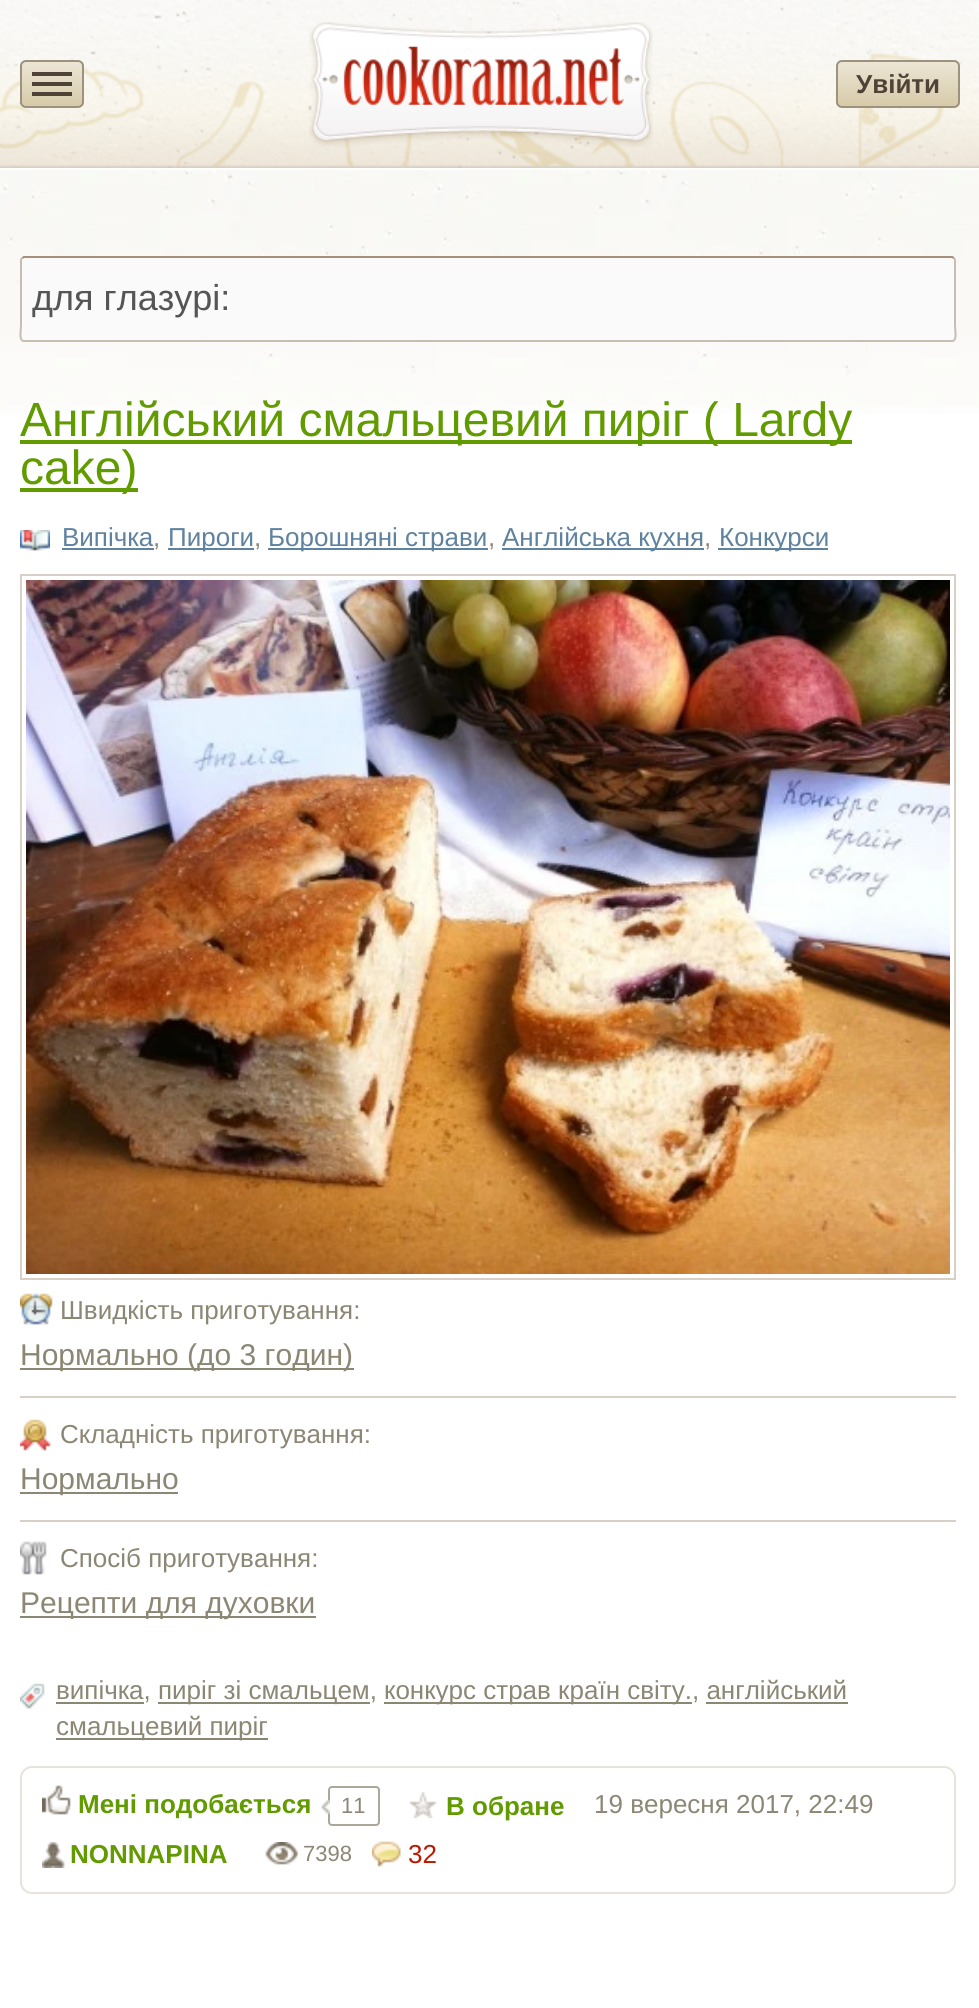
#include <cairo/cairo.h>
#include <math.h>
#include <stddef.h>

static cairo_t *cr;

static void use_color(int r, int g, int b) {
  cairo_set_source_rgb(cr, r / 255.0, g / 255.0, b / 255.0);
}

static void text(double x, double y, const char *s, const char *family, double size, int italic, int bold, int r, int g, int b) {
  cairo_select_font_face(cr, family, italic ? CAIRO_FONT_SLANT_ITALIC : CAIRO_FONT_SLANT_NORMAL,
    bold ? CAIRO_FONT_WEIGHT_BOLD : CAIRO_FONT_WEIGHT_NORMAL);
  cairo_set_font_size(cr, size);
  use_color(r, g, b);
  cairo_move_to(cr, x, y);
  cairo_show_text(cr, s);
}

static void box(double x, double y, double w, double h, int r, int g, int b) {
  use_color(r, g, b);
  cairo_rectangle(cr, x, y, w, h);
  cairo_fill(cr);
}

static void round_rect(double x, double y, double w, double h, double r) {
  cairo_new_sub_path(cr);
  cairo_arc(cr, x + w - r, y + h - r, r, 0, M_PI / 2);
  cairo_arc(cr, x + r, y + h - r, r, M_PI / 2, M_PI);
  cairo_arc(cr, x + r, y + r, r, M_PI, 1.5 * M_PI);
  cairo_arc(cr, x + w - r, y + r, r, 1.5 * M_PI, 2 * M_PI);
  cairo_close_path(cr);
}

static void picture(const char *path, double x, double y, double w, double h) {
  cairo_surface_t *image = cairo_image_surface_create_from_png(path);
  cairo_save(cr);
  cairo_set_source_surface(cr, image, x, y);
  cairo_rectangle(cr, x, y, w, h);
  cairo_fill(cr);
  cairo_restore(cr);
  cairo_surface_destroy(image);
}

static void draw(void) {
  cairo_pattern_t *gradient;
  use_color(255, 255, 255);
  cairo_paint(cr);
  picture("img_01.png", 0, 170, 979, 244);
  picture("img_02.png", 0, 0, 979, 168);
  cairo_save(cr);
  round_rect(20, 60, 64, 48, 6);
  cairo_clip(cr);
  gradient = cairo_pattern_create_linear(52, 62, 52, 106);
  cairo_pattern_add_color_stop_rgba(gradient, 0, 0.929, 0.902, 0.839, 1);
  cairo_pattern_add_color_stop_rgba(gradient, 1, 0.839, 0.792, 0.659, 1);
  cairo_set_source(cr, gradient);
  cairo_pattern_destroy(gradient);
  cairo_rectangle(cr, 20, 62, 64, 44);
  cairo_fill(cr);
  cairo_restore(cr);
  round_rect(21, 61, 62, 46, 5);
  use_color(155, 147, 126);
  cairo_stroke(cr);
  box(32, 72, 40, 4, 79, 66, 54);
  box(32, 82, 40, 4, 79, 66, 54);
  box(32, 92, 40, 4, 79, 66, 54);
  picture("img_03.png", 309, 22, 344, 125);
  cairo_save(cr);
  round_rect(836, 60, 124, 48, 6);
  cairo_clip(cr);
  gradient = cairo_pattern_create_linear(898, 62, 898, 106);
  cairo_pattern_add_color_stop_rgba(gradient, 0, 0.929, 0.902, 0.839, 1);
  cairo_pattern_add_color_stop_rgba(gradient, 1, 0.839, 0.792, 0.659, 1);
  cairo_set_source(cr, gradient);
  cairo_pattern_destroy(gradient);
  cairo_rectangle(cr, 836, 62, 124, 44);
  cairo_fill(cr);
  cairo_restore(cr);
  round_rect(837, 61, 122, 46, 5);
  use_color(155, 147, 126);
  cairo_stroke(cr);
  use_color(250, 250, 250);
  round_rect(20, 256, 936, 86, 4);
  cairo_fill(cr);
  cairo_new_path(cr);
  cairo_move_to(cr, 22, 258);
  cairo_line_to(cr, 24, 257);
  cairo_line_to(cr, 952, 257);
  cairo_line_to(cr, 954, 258);
  use_color(163, 145, 123);
  cairo_stroke(cr);
  cairo_new_path(cr);
  cairo_move_to(cr, 954, 258);
  cairo_line_to(cr, 955, 259.5);
  cairo_line_to(cr, 955, 325);
  cairo_curve_to(cr, 955, 331, 957.5, 341, 952, 341);
  cairo_line_to(cr, 24, 341);
  cairo_curve_to(cr, 18.5, 341, 21, 331, 21, 325);
  cairo_line_to(cr, 21, 259.5);
  cairo_line_to(cr, 22, 258);
  use_color(200, 189, 176);
  cairo_stroke(cr);
  box(20, 440, 832, 4, 98, 155, 0);
  box(20, 488, 118, 4, 98, 155, 0);
  picture("img_04.png", 20, 530, 30, 21);
  box(62, 548, 92, 2, 95, 130, 159);
  box(168, 548, 86, 2, 95, 130, 159);
  box(268, 548, 220, 2, 95, 130, 159);
  box(502, 548, 202, 2, 95, 130, 159);
  box(718, 548, 110, 2, 95, 130, 159);
  cairo_rectangle(cr, 21, 575, 934, 704);
  use_color(218, 207, 196);
  cairo_stroke(cr);
  picture("img_05.png", 26, 580, 924, 694);
  picture("img_06.png", 20, 1293, 33, 32);
  box(20, 1368, 334, 2, 140, 135, 116);
  box(20, 1396, 936, 2, 218, 207, 196);
  picture("img_07.png", 20, 1419, 31, 32);
  box(20, 1492, 158, 2, 140, 135, 116);
  box(20, 1520, 936, 2, 218, 207, 196);
  picture("img_08.png", 20, 1541, 27, 34);
  box(20, 1616, 296, 2, 140, 135, 116);
  picture("img_09.png", 20, 1683, 25, 26);
  box(56, 1702, 88, 2, 140, 135, 116);
  box(158, 1702, 212, 2, 140, 135, 116);
  box(384, 1702, 308, 2, 140, 135, 116);
  box(706, 1702, 142, 2, 140, 135, 116);
  box(56, 1738, 212, 2, 140, 135, 116);
  round_rect(21, 1767, 934, 126, 11);
  use_color(232, 226, 219);
  cairo_stroke(cr);
  picture("img_10.png", 42, 1785, 29, 30);
  round_rect(329, 1787, 50, 38, 3);
  use_color(171, 167, 153);
  cairo_stroke(cr);
  picture("img_11.png", 321, 1800, 9, 14);
  picture("img_12.png", 410, 1792, 27, 26);
  picture("img_13.png", 42, 1841, 23, 27);
  picture("img_14.png", 265, 1842, 34, 23);
  picture("img_15.png", 372, 1841, 29, 26);
  text(856, 93, "Увійти", "Liberation Sans", 26, 0, 1, 79, 66, 54);
  text(32, 310, "для глазурі:", "Liberation Sans", 36, 0, 0, 85, 85, 85);
  text(20, 436, "Англійський смальцевий пиріг ( Lardy", "Liberation Sans", 48, 0, 0, 98, 155, 0);
  text(20, 484, "cake)", "Liberation Sans", 48, 0, 0, 98, 155, 0);
  text(62, 546, "Випічка", "Liberation Sans", 26, 0, 0, 95, 130, 159);
  text(153, 546, ",", "Liberation Sans", 26, 0, 0, 140, 135, 116);
  text(168, 546, "Пироги", "Liberation Sans", 26, 0, 0, 95, 130, 159);
  text(254, 546, ",", "Liberation Sans", 26, 0, 0, 140, 135, 116);
  text(268, 546, "Борошняні страви", "Liberation Sans", 26, 0, 0, 95, 130, 159);
  text(488, 546, ",", "Liberation Sans", 26, 0, 0, 140, 135, 116);
  text(502, 546, "Англійська кухня", "Liberation Sans", 26, 0, 0, 95, 130, 159);
  text(704, 546, ",", "Liberation Sans", 26, 0, 0, 140, 135, 116);
  text(719, 546, "Конкурси", "Liberation Sans", 26, 0, 0, 95, 130, 159);
  text(60, 1319, "Швидкість приготування:", "Liberation Sans", 26, 0, 0, 140, 135, 116);
  text(20, 1365, "Нормально (до 3 годин)", "Liberation Sans", 30, 0, 0, 140, 135, 116);
  text(60, 1443, "Складність приготування:", "Liberation Sans", 26, 0, 0, 140, 135, 116);
  text(20, 1489, "Нормально", "Liberation Sans", 30, 0, 0, 140, 135, 116);
  text(60, 1567, "Спосіб приготування:", "Liberation Sans", 26, 0, 0, 140, 135, 116);
  text(20, 1613, "Рецепти для духовки", "Liberation Sans", 30, 0, 0, 140, 135, 116);
  text(56, 1699, "випічка,", "Liberation Sans", 26, 0, 0, 140, 135, 116);
  text(158, 1699, "пиріг зі смальцем,", "Liberation Sans", 26, 0, 0, 140, 135, 116);
  text(384, 1699, "конкурс страв країн світу., англійський", "Liberation Sans", 26, 0, 0, 140, 135, 116);
  text(56, 1735, "смальцевий пиріг", "Liberation Sans", 26, 0, 0, 140, 135, 116);
  text(78, 1813, "Мені подобається", "Liberation Sans", 26, 0, 1, 98, 155, 0);
  text(341, 1813, "11", "Liberation Sans", 22, 0, 0, 140, 135, 116);
  text(446, 1815, "В обране", "Liberation Sans", 26, 0, 1, 98, 155, 0);
  text(594, 1813, "19 вересня 2017, 22:49", "Liberation Sans", 26, 0, 0, 140, 135, 116);
  text(70, 1863, "NONNAPINA", "Liberation Sans", 26, 0, 1, 98, 155, 0);
  text(303, 1861, "7398", "Liberation Sans", 22, 0, 0, 140, 135, 116);
  text(408, 1863, "32", "Liberation Sans", 26, 0, 0, 190, 23, 0);
}

int main(void) {
  cairo_surface_t *surface = cairo_image_surface_create(CAIRO_FORMAT_RGB24, 979, 2008);
  cr = cairo_create(surface);
  cairo_font_options_t *options = cairo_font_options_create();
  cairo_font_options_set_hint_metrics(options, CAIRO_HINT_METRICS_OFF);
  cairo_font_options_set_hint_style(options, CAIRO_HINT_STYLE_NONE);
  cairo_set_font_options(cr, options);
  cairo_set_miter_limit(cr, 4);
  draw();
  cairo_surface_write_to_png(surface, "out.png");
  cairo_font_options_destroy(options);
  cairo_destroy(cr);
  cairo_surface_destroy(surface);
  return 0;
}
